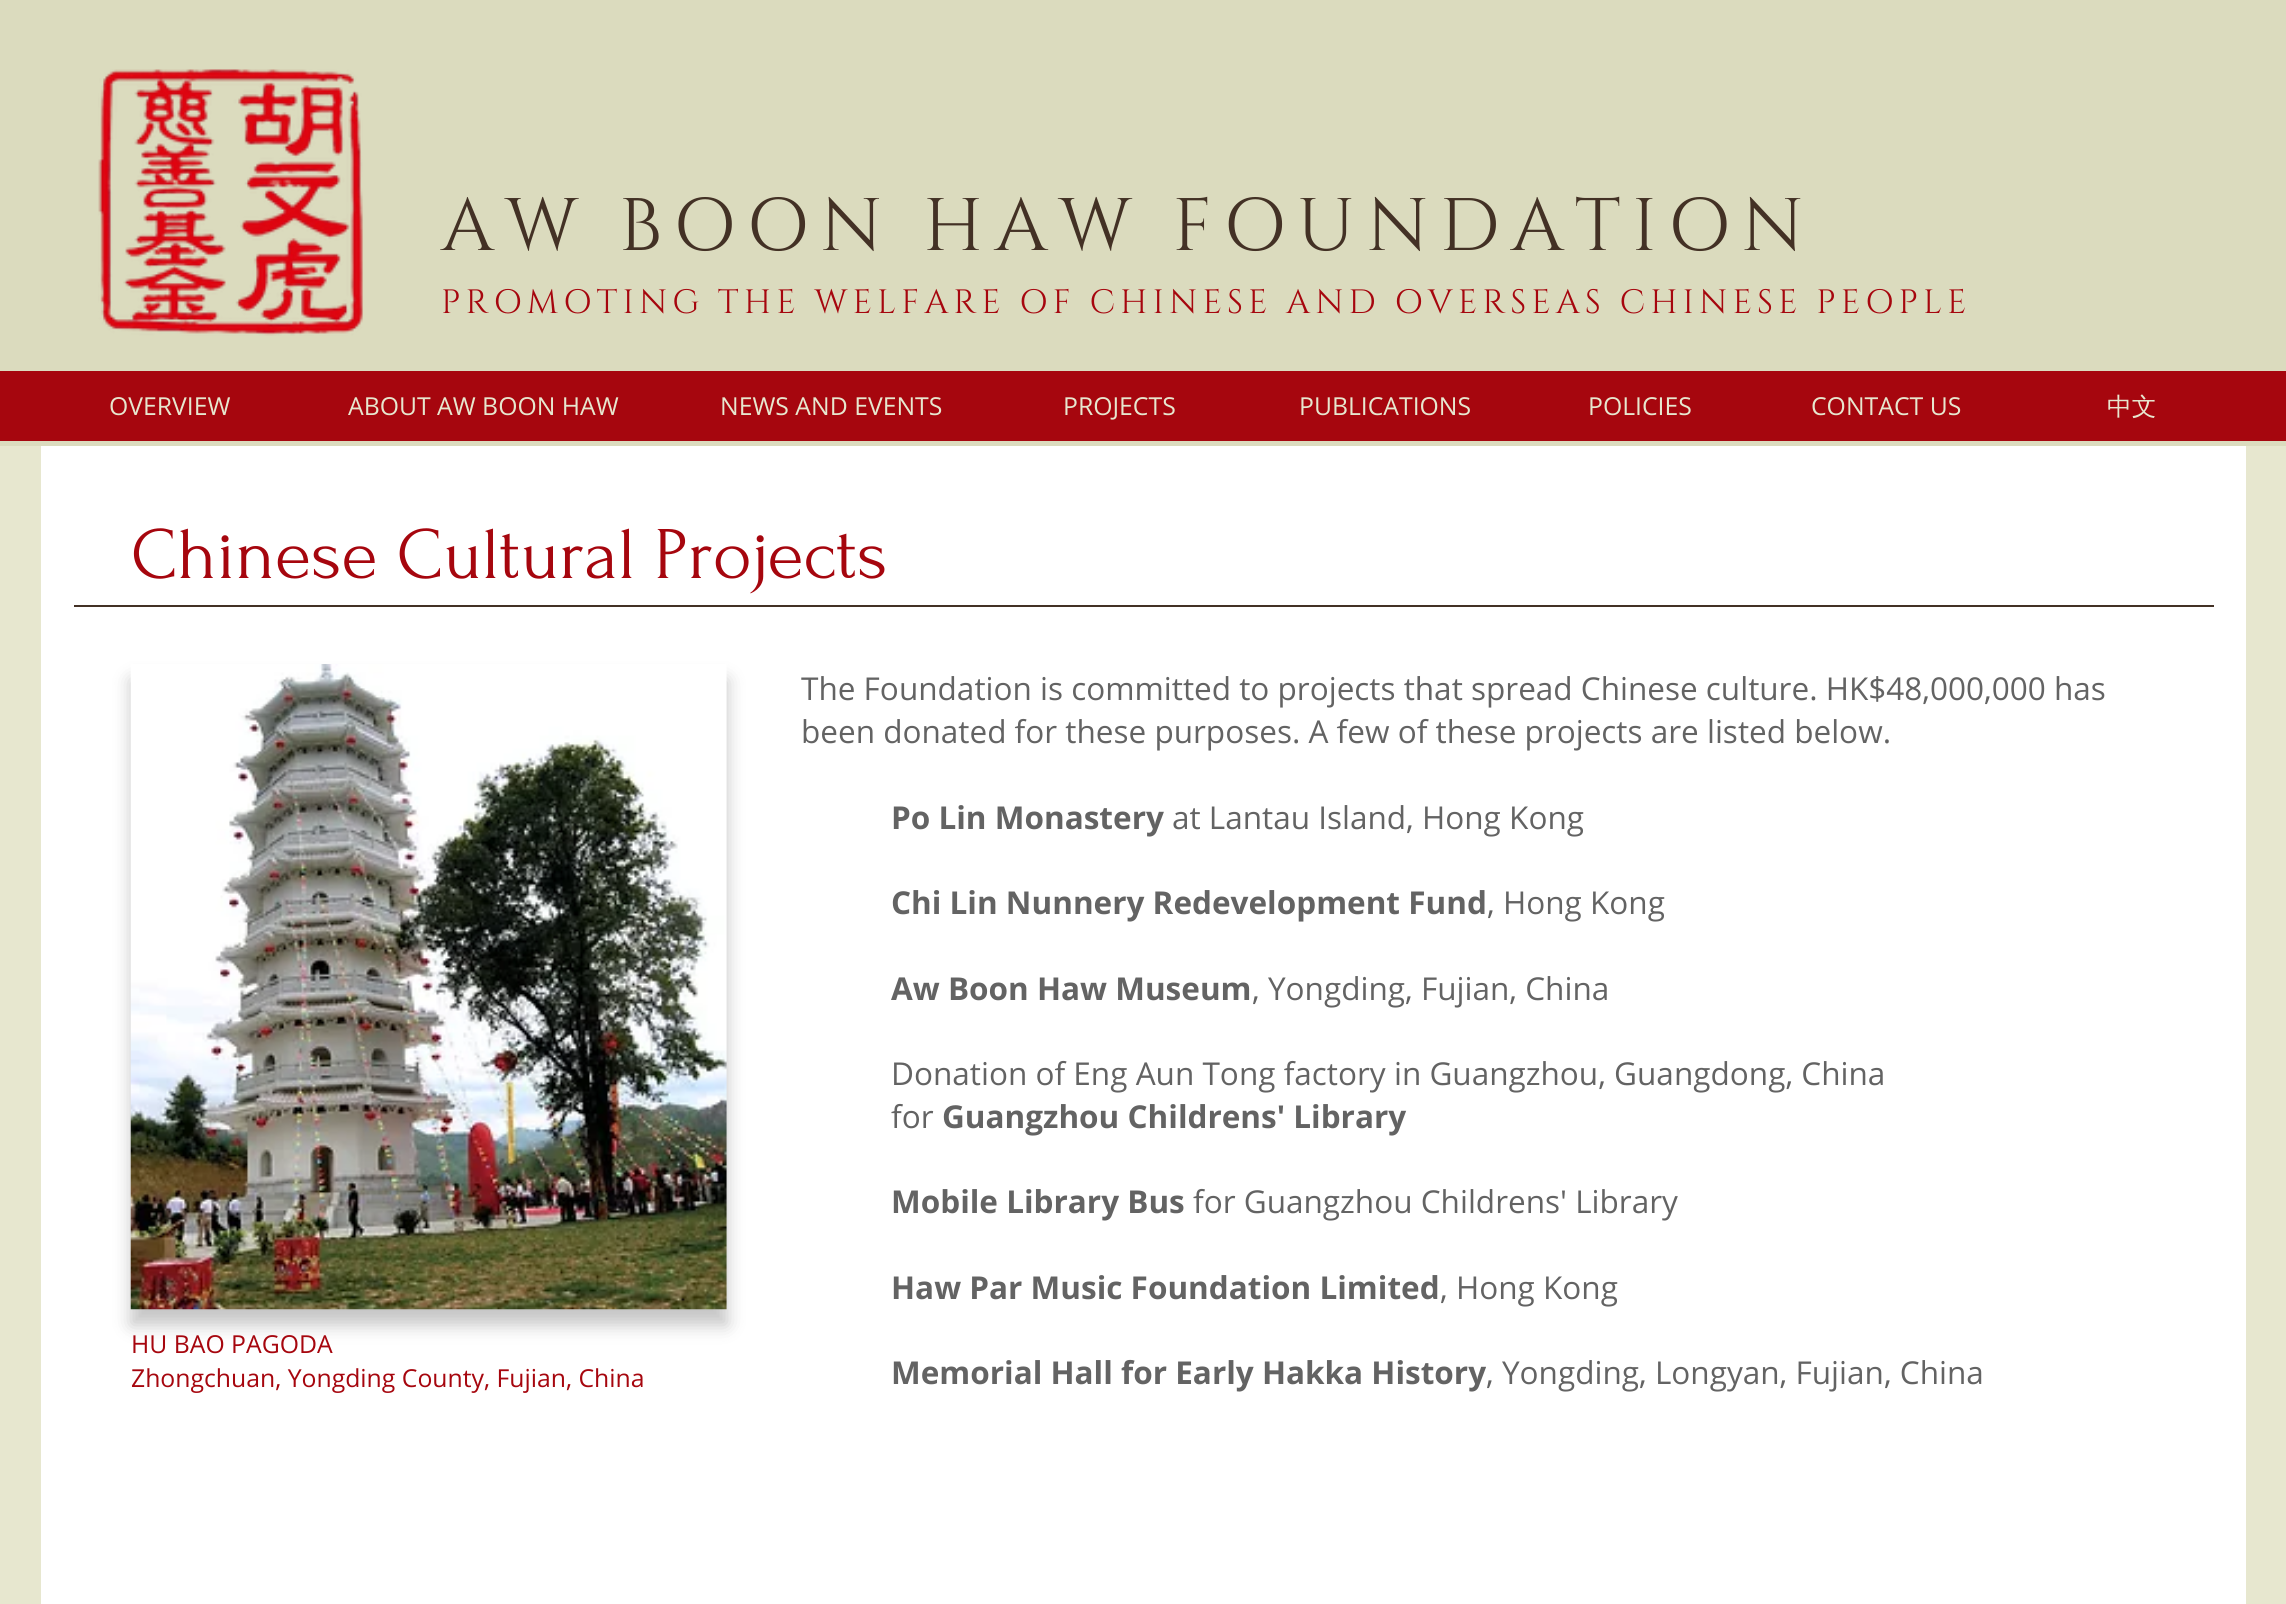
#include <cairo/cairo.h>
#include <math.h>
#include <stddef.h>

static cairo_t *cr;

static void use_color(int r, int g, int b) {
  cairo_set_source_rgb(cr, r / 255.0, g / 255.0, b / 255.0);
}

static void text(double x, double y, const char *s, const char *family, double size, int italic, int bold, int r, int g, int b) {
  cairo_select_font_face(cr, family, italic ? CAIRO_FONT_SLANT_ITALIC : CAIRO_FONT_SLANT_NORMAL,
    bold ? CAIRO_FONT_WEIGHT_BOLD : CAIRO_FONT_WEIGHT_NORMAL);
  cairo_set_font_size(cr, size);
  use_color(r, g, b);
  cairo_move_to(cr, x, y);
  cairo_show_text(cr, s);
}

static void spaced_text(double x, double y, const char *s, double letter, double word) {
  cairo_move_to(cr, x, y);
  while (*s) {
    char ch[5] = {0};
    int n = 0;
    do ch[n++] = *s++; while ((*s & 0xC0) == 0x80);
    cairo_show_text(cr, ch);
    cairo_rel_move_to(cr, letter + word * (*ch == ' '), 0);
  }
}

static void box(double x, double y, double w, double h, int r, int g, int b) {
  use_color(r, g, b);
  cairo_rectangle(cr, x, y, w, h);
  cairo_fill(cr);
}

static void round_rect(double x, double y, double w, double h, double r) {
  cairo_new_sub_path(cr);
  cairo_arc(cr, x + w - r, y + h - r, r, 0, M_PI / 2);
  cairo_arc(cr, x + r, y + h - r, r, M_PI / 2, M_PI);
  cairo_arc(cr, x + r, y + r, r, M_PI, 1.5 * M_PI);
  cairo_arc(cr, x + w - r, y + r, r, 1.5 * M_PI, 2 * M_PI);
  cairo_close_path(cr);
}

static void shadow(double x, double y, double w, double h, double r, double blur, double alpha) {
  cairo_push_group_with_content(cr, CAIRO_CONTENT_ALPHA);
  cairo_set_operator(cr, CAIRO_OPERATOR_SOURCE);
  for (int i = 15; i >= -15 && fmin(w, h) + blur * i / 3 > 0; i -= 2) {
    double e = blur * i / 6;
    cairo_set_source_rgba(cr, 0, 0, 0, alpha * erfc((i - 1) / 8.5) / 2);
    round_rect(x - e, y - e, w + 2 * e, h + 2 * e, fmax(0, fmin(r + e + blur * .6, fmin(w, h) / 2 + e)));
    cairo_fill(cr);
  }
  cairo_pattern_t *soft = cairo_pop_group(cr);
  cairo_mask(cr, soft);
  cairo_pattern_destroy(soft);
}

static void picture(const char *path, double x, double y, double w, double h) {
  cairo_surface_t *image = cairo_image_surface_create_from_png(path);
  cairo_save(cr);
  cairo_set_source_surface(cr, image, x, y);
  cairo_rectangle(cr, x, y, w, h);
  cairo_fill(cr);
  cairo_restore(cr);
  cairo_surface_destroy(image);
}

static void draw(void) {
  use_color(231, 231, 207);
  cairo_paint(cr);
  box(0, 0, 2286, 446, 219, 219, 190);
  picture("img_01.png", 98, 69, 265, 267);
  box(0, 371, 2286, 70, 166, 6, 14);
  box(41, 446, 2205, 1158, 255, 255, 255);
  box(74, 605, 2140, 2, 67, 49, 37);
  use_color(0, 0, 0);
  shadow(131, 680, 596, 645, 0, 9, 0.23);
  picture("img_02.png", 130, 664, 597, 646);
  cairo_select_font_face(cr, "Cinzel", CAIRO_FONT_SLANT_NORMAL, CAIRO_FONT_WEIGHT_NORMAL);
  cairo_set_font_size(cr, 74.25);
  use_color(67, 49, 37);
  spaced_text(441, 250, "AW BOON HAW FOUNDATION", 11.1, 0);
  cairo_set_font_size(cr, 33.75);
  use_color(166, 6, 14);
  spaced_text(441, 313, "PROMOTING THE WELFARE OF CHINESE AND OVERSEAS CHINESE PEOPLE", 5.05, 0);
  text(109, 415, "OVERVIEW", "Open Sans", 24.75, 0, 0, 231, 231, 207);
  text(348, 415, "ABOUT AW BOON HAW", "Open Sans", 24.75, 0, 0, 231, 231, 207);
  text(720, 415, "NEWS AND EVENTS", "Open Sans", 24.75, 0, 0, 231, 231, 207);
  text(1063, 415, "PROJECTS", "Open Sans", 24.75, 0, 0, 231, 231, 207);
  text(1299, 415, "PUBLICATIONS", "Open Sans", 24.75, 0, 0, 231, 231, 207);
  text(1588, 415, "POLICIES", "Open Sans", 24.75, 0, 0, 231, 231, 207);
  text(1811, 415, "CONTACT US", "Open Sans", 24.75, 0, 0, 231, 231, 207);
  text(2107, 415, "中文", "WenQuanYi Zen Hei Medium", 24.75, 0, 0, 231, 231, 207);
  text(131, 578, "Chinese Cultural Projects", "Forum", 74.25, 0, 0, 166, 6, 14);
  text(131, 1353, "HU BAO PAGODA", "Open Sans", 24.75, 0, 0, 166, 6, 14);
  text(131, 1387, "Zhongchuan, Yongding County, Fujian, China", "Open Sans", 24.75, 0, 0, 166, 6, 14);
  text(801, 700, "The Foundation is committed to projects that spread Chinese culture. HK$48,000,000 has", "Open Sans", 31.5, 0, 0, 99, 99, 99);
  text(801, 743, "been donated for these purposes. A few of these projects are listed below.", "Open Sans", 31.5, 0, 0, 99, 99, 99);
  text(891, 829, "Po Lin Monastery", "Open Sans", 31.5, 0, 1, 99, 99, 99);
  text(1172, 829, "at Lantau Island, Hong Kong", "Open Sans", 31.5, 0, 0, 99, 99, 99);
  text(891, 914, "Chi Lin Nunnery Redevelopment Fund", "Open Sans", 31.5, 0, 1, 99, 99, 99);
  text(1487, 914, ", Hong Kong", "Open Sans", 31.5, 0, 0, 99, 99, 99);
  text(891, 1000, "Aw Boon Haw Museum", "Open Sans", 31.5, 0, 1, 99, 99, 99);
  text(1252, 1000, ", Yongding, Fujian, China", "Open Sans", 31.5, 0, 0, 99, 99, 99);
  text(891, 1085, "Donation of Eng Aun Tong factory in Guangzhou, Guangdong, China", "Open Sans", 31.5, 0, 0, 99, 99, 99);
  text(891, 1128, "for", "Open Sans", 31.5, 0, 0, 99, 99, 99);
  text(942, 1128, "Guangzhou Childrens' Library", "Open Sans", 31.5, 0, 1, 99, 99, 99);
  text(891, 1213, "Mobile Library Bus", "Open Sans", 31.5, 0, 1, 99, 99, 99);
  text(1193, 1213, "for Guangzhou Childrens' Library", "Open Sans", 31.5, 0, 0, 99, 99, 99);
  text(891, 1299, "Haw Par Music Foundation Limited", "Open Sans", 31.5, 0, 1, 99, 99, 99);
  text(1440, 1299, ", Hong Kong", "Open Sans", 31.5, 0, 0, 99, 99, 99);
  text(891, 1384, "Memorial Hall for Early Hakka History", "Open Sans", 31.5, 0, 1, 99, 99, 99);
  text(1486, 1384, ", Yongding, Longyan, Fujian, China", "Open Sans", 31.5, 0, 0, 99, 99, 99);
}

int main(void) {
  cairo_surface_t *surface = cairo_image_surface_create(CAIRO_FORMAT_RGB24, 2286, 1604);
  cr = cairo_create(surface);
  cairo_font_options_t *options = cairo_font_options_create();
  cairo_font_options_set_hint_metrics(options, CAIRO_HINT_METRICS_OFF);
  cairo_font_options_set_hint_style(options, CAIRO_HINT_STYLE_NONE);
  cairo_set_font_options(cr, options);
  cairo_set_miter_limit(cr, 4);
  draw();
  cairo_surface_write_to_png(surface, "out.png");
  cairo_font_options_destroy(options);
  cairo_destroy(cr);
  cairo_surface_destroy(surface);
  return 0;
}
